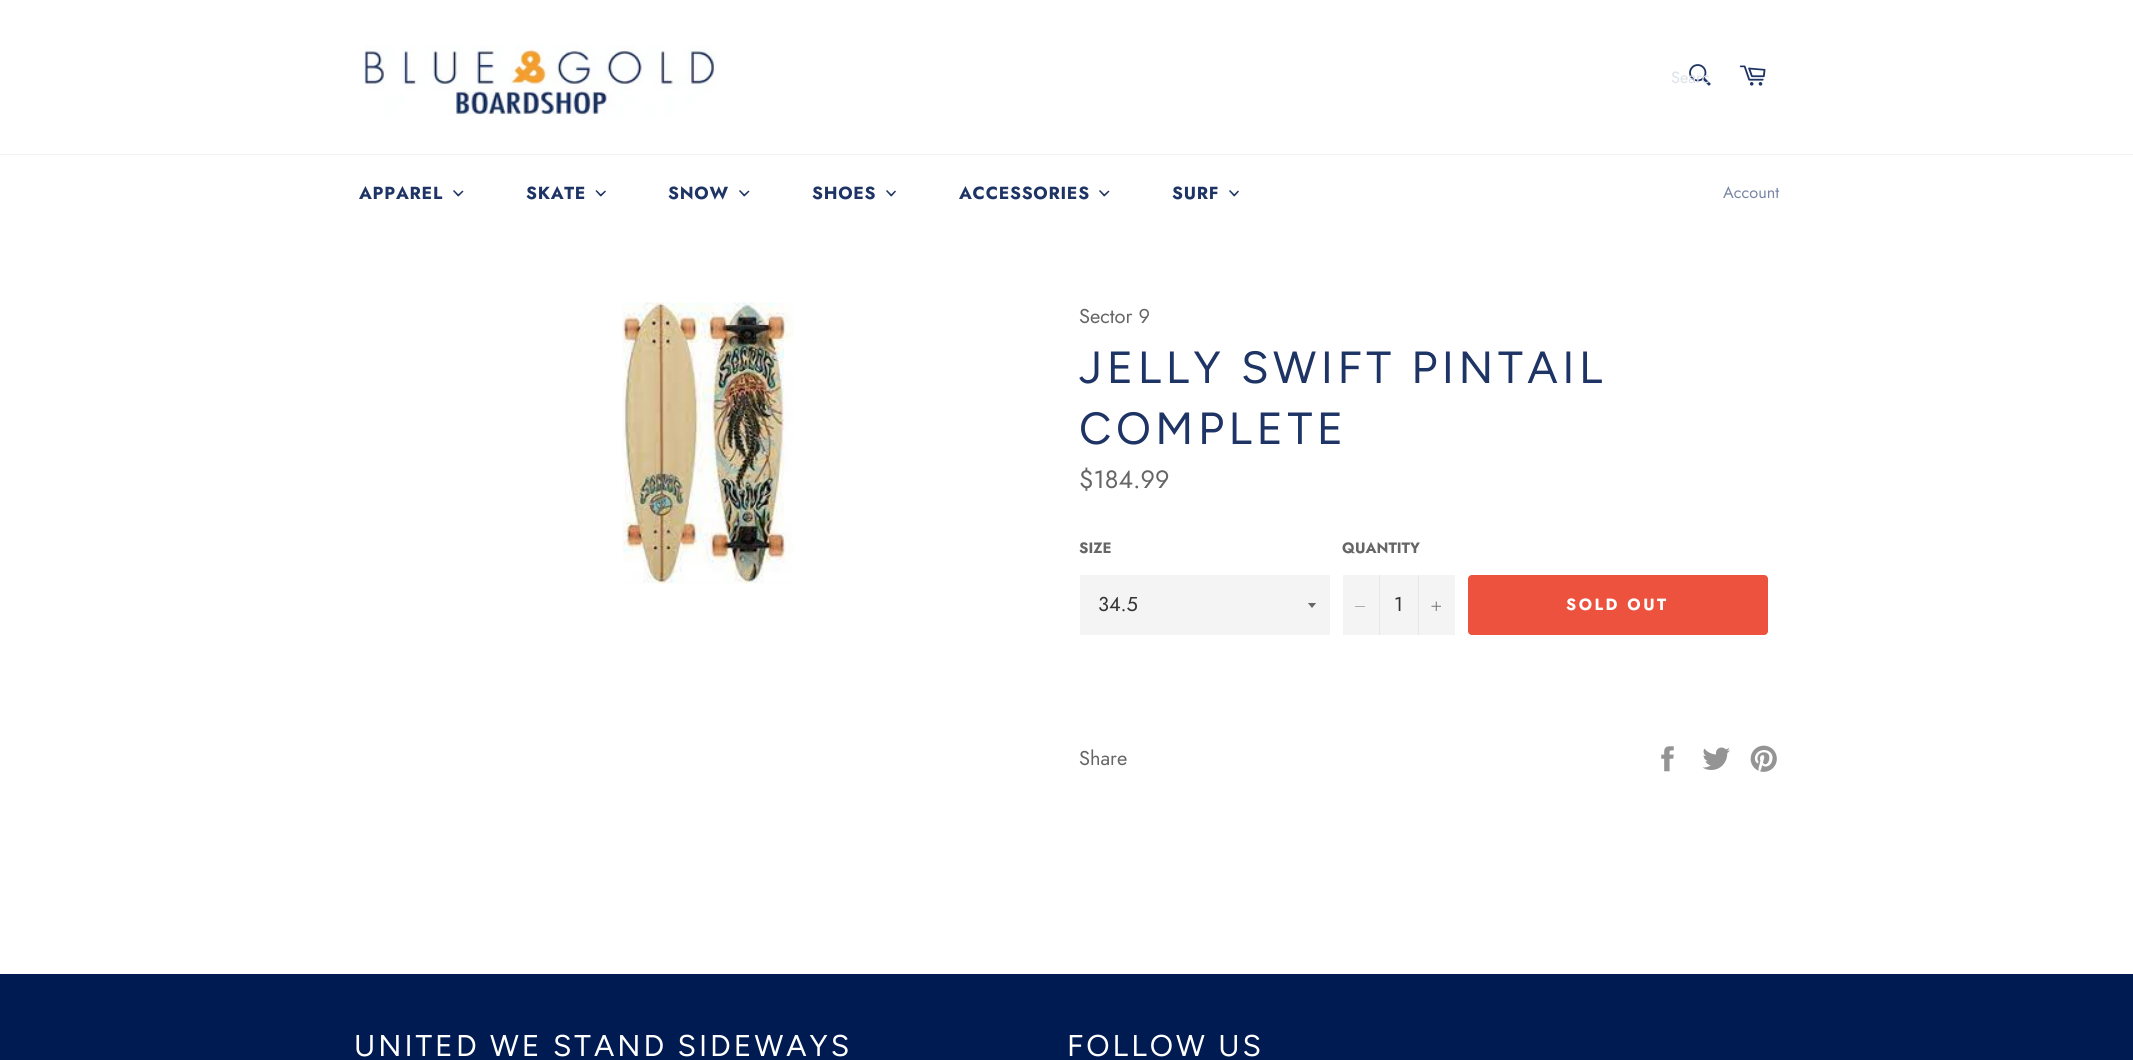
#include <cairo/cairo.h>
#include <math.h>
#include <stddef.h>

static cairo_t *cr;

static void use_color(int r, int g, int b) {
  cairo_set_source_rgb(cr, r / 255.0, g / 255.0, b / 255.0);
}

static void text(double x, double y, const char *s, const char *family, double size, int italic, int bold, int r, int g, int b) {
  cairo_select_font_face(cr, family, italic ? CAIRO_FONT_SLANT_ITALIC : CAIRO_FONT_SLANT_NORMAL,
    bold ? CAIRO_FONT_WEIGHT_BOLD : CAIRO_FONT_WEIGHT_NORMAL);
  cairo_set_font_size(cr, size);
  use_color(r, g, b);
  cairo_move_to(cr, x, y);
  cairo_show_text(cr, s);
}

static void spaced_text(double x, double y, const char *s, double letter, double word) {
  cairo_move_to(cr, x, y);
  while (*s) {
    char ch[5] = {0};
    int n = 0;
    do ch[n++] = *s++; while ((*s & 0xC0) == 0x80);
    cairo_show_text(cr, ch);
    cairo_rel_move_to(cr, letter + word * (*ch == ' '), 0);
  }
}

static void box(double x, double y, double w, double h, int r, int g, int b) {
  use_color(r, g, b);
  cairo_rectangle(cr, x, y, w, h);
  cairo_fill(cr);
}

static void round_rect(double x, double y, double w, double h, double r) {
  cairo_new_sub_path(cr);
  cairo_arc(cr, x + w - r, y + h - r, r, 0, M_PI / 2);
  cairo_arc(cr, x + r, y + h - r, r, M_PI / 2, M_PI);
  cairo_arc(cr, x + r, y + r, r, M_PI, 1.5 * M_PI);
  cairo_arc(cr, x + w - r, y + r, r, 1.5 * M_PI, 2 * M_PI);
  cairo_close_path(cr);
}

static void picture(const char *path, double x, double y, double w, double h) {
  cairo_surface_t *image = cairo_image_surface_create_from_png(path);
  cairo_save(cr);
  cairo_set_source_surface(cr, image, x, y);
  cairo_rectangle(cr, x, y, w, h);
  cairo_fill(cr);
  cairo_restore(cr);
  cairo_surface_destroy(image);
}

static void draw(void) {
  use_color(255, 255, 255);
  cairo_paint(cr);
  picture("img_01.png", 364, 45, 352, 71);
  picture("img_02.png", 1689, 64, 22, 22);
  picture("img_03.png", 1739, 65, 27, 21);
  box(0, 154, 2133, 1, 242, 242, 242);
  use_color(30, 52, 101);
  cairo_new_path(cr);
  cairo_move_to(cr, 462.5, 190.5);
  cairo_line_to(cr, 463.5, 191.5);
  cairo_line_to(cr, 458.5, 196.5);
  cairo_line_to(cr, 457.5, 195);
  cairo_close_path(cr);
  cairo_fill(cr);
  cairo_new_path(cr);
  cairo_move_to(cr, 454, 190);
  cairo_line_to(cr, 459, 195);
  cairo_line_to(cr, 458, 196.5);
  cairo_line_to(cr, 453, 191);
  cairo_close_path(cr);
  cairo_fill(cr);
  cairo_new_path(cr);
  cairo_move_to(cr, 605, 190.5);
  cairo_line_to(cr, 606, 191.5);
  cairo_line_to(cr, 601, 196.5);
  cairo_line_to(cr, 600, 195);
  cairo_close_path(cr);
  cairo_fill(cr);
  cairo_new_path(cr);
  cairo_move_to(cr, 596.5, 190);
  cairo_line_to(cr, 601.5, 195);
  cairo_line_to(cr, 600.5, 196.5);
  cairo_line_to(cr, 595.5, 191);
  cairo_close_path(cr);
  cairo_fill(cr);
  cairo_new_path(cr);
  cairo_move_to(cr, 748.5, 190.5);
  cairo_line_to(cr, 749.5, 191.5);
  cairo_line_to(cr, 744.5, 196.5);
  cairo_line_to(cr, 743.5, 195);
  cairo_close_path(cr);
  cairo_fill(cr);
  cairo_new_path(cr);
  cairo_move_to(cr, 740, 190);
  cairo_line_to(cr, 745, 195);
  cairo_line_to(cr, 744, 196.5);
  cairo_line_to(cr, 739, 191);
  cairo_close_path(cr);
  cairo_fill(cr);
  cairo_new_path(cr);
  cairo_move_to(cr, 895, 190.5);
  cairo_line_to(cr, 896, 191.5);
  cairo_line_to(cr, 891.5, 196.5);
  cairo_line_to(cr, 890.5, 195);
  cairo_close_path(cr);
  cairo_fill(cr);
  cairo_new_path(cr);
  cairo_move_to(cr, 887, 190);
  cairo_line_to(cr, 892, 195);
  cairo_line_to(cr, 891, 196.5);
  cairo_line_to(cr, 886, 191);
  cairo_close_path(cr);
  cairo_fill(cr);
  cairo_new_path(cr);
  cairo_move_to(cr, 1108.5, 190.5);
  cairo_line_to(cr, 1109.5, 191.5);
  cairo_line_to(cr, 1104.5, 196.5);
  cairo_line_to(cr, 1103.5, 195);
  cairo_close_path(cr);
  cairo_fill(cr);
  cairo_new_path(cr);
  cairo_move_to(cr, 1100, 190);
  cairo_line_to(cr, 1105, 195);
  cairo_line_to(cr, 1104, 196.5);
  cairo_line_to(cr, 1099, 191);
  cairo_close_path(cr);
  cairo_fill(cr);
  cairo_new_path(cr);
  cairo_move_to(cr, 1238, 190.5);
  cairo_line_to(cr, 1239, 191.5);
  cairo_line_to(cr, 1234.5, 196.5);
  cairo_line_to(cr, 1233.5, 195);
  cairo_close_path(cr);
  cairo_fill(cr);
  cairo_new_path(cr);
  cairo_move_to(cr, 1230, 190);
  cairo_line_to(cr, 1235, 195);
  cairo_line_to(cr, 1234, 196.5);
  cairo_line_to(cr, 1229, 191);
  cairo_close_path(cr);
  cairo_fill(cr);
  picture("img_04.png", 622, 302, 172, 282);
  box(1080, 575, 250, 60, 244, 244, 244);
  cairo_save(cr);
  cairo_rectangle(cr, 1308, 603, 10, 6);
  cairo_clip(cr);
  use_color(102, 102, 102);
  cairo_new_path(cr);
  cairo_move_to(cr, 1307.5, 602.5);
  cairo_line_to(cr, 1312, 608);
  cairo_line_to(cr, 1316.5, 602.5);
  cairo_close_path(cr);
  cairo_fill(cr);
  cairo_restore(cr);
  box(1343, 575, 112, 60, 244, 244, 244);
  box(1379, 575, 1, 60, 231, 231, 231);
  use_color(102, 102, 102);
  cairo_set_fill_rule(cr, CAIRO_FILL_RULE_EVEN_ODD);
  cairo_new_path(cr);
  cairo_move_to(cr, 1365, 606);
  cairo_line_to(cr, 1365, 606.5);
  cairo_line_to(cr, 1355, 606.5);
  cairo_line_to(cr, 1355, 606);
  cairo_close_path(cr);
  cairo_fill(cr);
  box(1418, 575, 1, 60, 231, 231, 231);
  picture("img_05.png", 1431, 601, 10, 10);
  use_color(236, 82, 62);
  round_rect(1468, 575, 300, 60, 4);
  cairo_fill(cr);
  picture("img_06.png", 1661, 746, 13, 26);
  picture("img_07.png", 1702, 747, 28, 23);
  picture("img_08.png", 1750, 745, 27, 27);
  box(0, 974, 2133, 86, 0, 27, 81);
  text(1671, 83, "Searc", "Jost", 16.25, 0, 0, 221, 225, 232);
  cairo_select_font_face(cr, "Jost", CAIRO_FONT_SLANT_NORMAL, CAIRO_FONT_WEIGHT_BOLD);
  cairo_set_font_size(cr, 17.5);
  use_color(30, 52, 101);
  spaced_text(359, 199, "APPAREL", 0.75, 0);
  spaced_text(526, 199, "SKATE", 0.75, 0);
  spaced_text(668, 199, "SNOW", 0.75, 0);
  spaced_text(812, 199, "SHOES", 0.75, 0);
  spaced_text(959, 199, "ACCESSORIES", 0.75, 0);
  spaced_text(1172, 199, "SURF", 0.75, 0);
  text(1723, 198, "Account", "Jost", 16.25, 0, 0, 120, 133, 163);
  text(1079, 323, "Sector 9", "Jost", 20, 0, 0, 102, 102, 102);
  cairo_select_font_face(cr, "Figtree", CAIRO_FONT_SLANT_NORMAL, CAIRO_FONT_WEIGHT_NORMAL);
  cairo_set_font_size(cr, 45);
  use_color(30, 52, 101);
  spaced_text(1079, 383, "JELLY SWIFT PINTAIL", 4.5, 0);
  spaced_text(1079, 444, "COMPLETE", 4.5, 0);
  text(1079, 488, "$184.99", "Jost", 25, 0, 0, 102, 102, 102);
  text(1079, 553, "SIZE", "Jost", 15, 0, 1, 102, 102, 102);
  text(1098, 611, "34.5", "Jost", 20, 0, 0, 51, 51, 51);
  text(1342, 553, "QUANTITY", "Jost", 15, 0, 1, 102, 102, 102);
  text(1394, 611, "1", "Jost", 20, 0, 0, 51, 51, 51);
  cairo_select_font_face(cr, "Jost", CAIRO_FONT_SLANT_NORMAL, CAIRO_FONT_WEIGHT_BOLD);
  cairo_set_font_size(cr, 16.25);
  use_color(255, 255, 255);
  spaced_text(1566, 610, "SOLD OUT", 2.5, 0);
  text(1079, 765, "Share", "Jost", 20, 0, 0, 102, 102, 102);
  cairo_select_font_face(cr, "Figtree", CAIRO_FONT_SLANT_NORMAL, CAIRO_FONT_WEIGHT_NORMAL);
  cairo_set_font_size(cr, 30);
  use_color(255, 255, 255);
  spaced_text(354, 1056, "UNITED WE STAND SIDEWAYS", 3, 0);
  spaced_text(1067, 1056, "FOLLOW US", 3, 0);
}

int main(void) {
  cairo_surface_t *surface = cairo_image_surface_create(CAIRO_FORMAT_RGB24, 2133, 1060);
  cr = cairo_create(surface);
  cairo_font_options_t *options = cairo_font_options_create();
  cairo_font_options_set_hint_metrics(options, CAIRO_HINT_METRICS_OFF);
  cairo_font_options_set_hint_style(options, CAIRO_HINT_STYLE_NONE);
  cairo_set_font_options(cr, options);
  cairo_set_miter_limit(cr, 4);
  draw();
  cairo_surface_write_to_png(surface, "out.png");
  cairo_font_options_destroy(options);
  cairo_destroy(cr);
  cairo_surface_destroy(surface);
  return 0;
}
